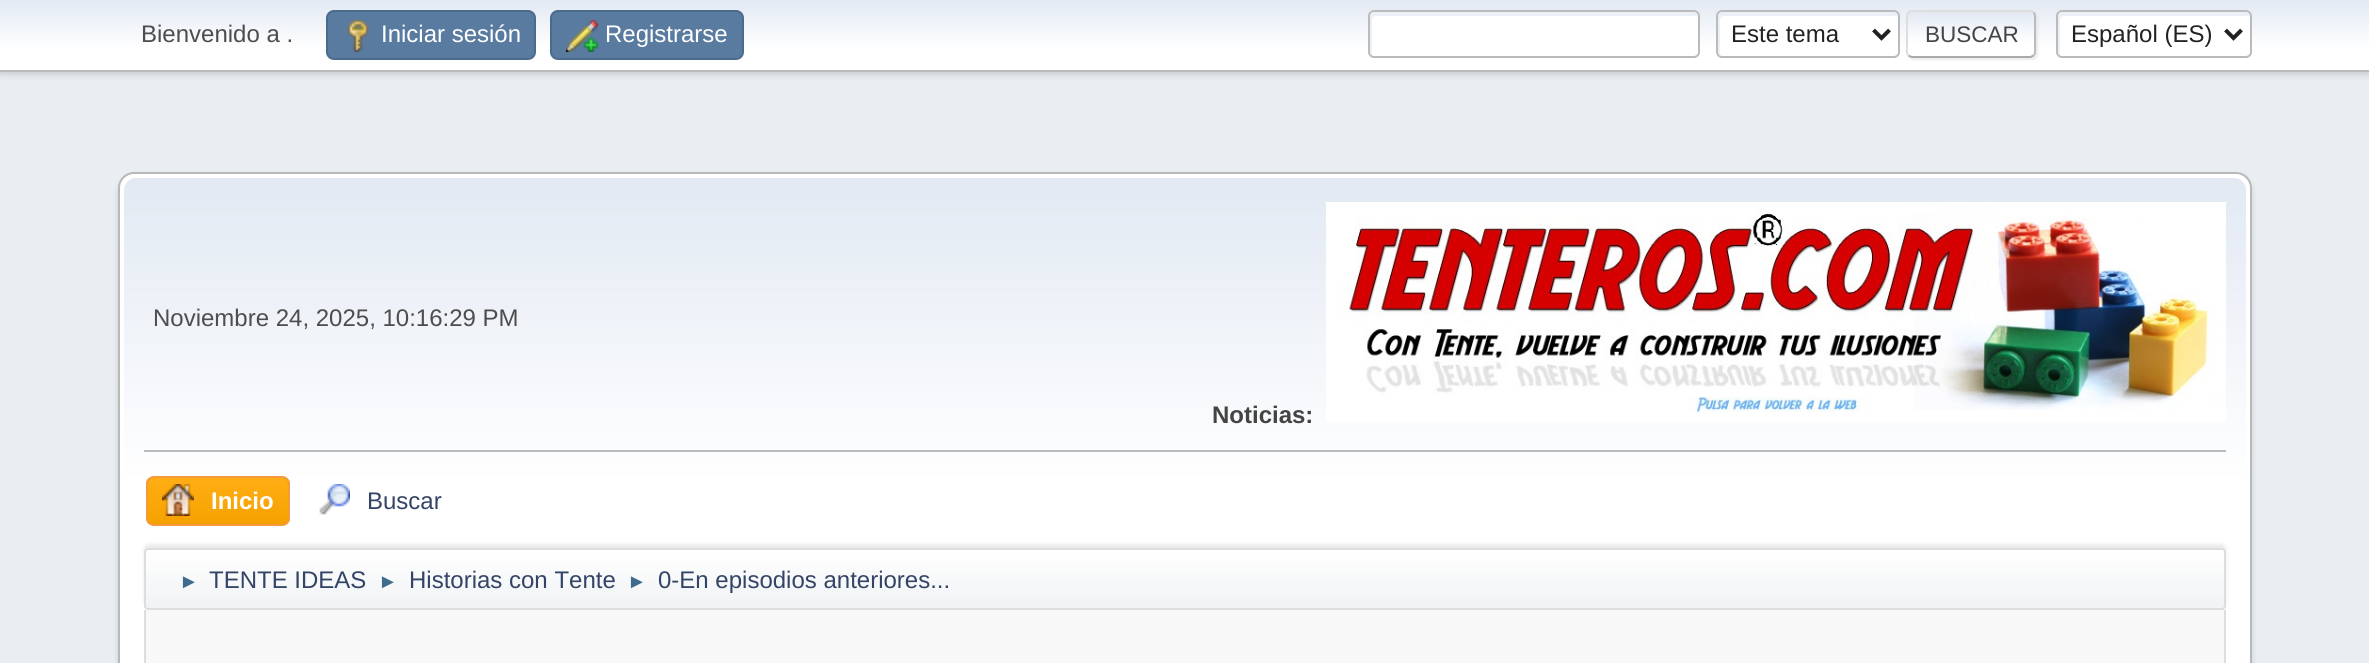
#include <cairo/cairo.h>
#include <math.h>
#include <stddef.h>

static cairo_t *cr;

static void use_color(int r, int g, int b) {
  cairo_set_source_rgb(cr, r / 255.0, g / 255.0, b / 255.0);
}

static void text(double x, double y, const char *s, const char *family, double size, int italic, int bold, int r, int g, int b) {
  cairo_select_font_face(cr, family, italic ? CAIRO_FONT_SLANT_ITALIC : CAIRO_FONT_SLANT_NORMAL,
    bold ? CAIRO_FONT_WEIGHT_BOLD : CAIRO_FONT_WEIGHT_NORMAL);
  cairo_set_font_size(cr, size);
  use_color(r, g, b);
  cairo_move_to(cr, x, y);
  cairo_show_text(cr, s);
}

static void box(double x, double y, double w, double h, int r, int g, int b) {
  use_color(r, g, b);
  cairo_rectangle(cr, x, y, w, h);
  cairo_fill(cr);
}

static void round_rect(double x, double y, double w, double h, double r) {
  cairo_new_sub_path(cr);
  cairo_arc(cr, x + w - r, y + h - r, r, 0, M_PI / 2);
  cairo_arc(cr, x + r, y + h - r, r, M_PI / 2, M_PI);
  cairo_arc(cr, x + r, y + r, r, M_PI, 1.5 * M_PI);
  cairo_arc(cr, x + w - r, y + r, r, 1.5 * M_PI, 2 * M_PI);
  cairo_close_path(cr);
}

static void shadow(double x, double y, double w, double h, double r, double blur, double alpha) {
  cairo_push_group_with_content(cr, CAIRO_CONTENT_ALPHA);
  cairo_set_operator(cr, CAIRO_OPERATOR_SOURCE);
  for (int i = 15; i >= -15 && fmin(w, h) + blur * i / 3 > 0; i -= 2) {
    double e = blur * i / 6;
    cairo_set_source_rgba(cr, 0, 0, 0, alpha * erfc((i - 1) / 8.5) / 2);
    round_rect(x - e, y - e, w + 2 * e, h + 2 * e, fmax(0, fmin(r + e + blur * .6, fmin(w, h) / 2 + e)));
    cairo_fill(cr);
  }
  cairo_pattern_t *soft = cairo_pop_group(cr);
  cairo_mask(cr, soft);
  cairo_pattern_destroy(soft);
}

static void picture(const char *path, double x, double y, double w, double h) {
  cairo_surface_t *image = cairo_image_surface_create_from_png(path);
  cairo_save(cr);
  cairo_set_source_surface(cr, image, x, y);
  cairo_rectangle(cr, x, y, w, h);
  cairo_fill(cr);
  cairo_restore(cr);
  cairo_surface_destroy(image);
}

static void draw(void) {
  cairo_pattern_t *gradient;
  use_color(233, 238, 242);
  cairo_paint(cr);
  use_color(0, 0, 0);
  shadow(0, 2, 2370, 72, 0, 4, 0.16);
  gradient = cairo_pattern_create_linear(1185, 0, 1185, 70);
  cairo_pattern_add_color_stop_rgba(gradient, 0, 0.886, 0.914, 0.953, 1);
  cairo_pattern_add_color_stop_rgba(gradient, 0.7, 1, 1, 1, 1);
  cairo_set_source(cr, gradient);
  cairo_pattern_destroy(gradient);
  cairo_rectangle(cr, 0, 0, 2369, 70);
  cairo_fill(cr);
  box(0, 70, 2369, 2, 187, 187, 187);
  use_color(89, 123, 159);
  round_rect(327, 11, 208, 48, 7);
  cairo_fill_preserve(cr);
  use_color(74, 107, 140);
  cairo_stroke(cr);
  picture("img_01.png", 347, 20, 22, 32);
  use_color(89, 123, 159);
  round_rect(551, 11, 192, 48, 7);
  cairo_fill_preserve(cr);
  use_color(74, 107, 140);
  cairo_stroke(cr);
  picture("img_02.png", 566, 20, 32, 32);
  use_color(255, 255, 255);
  round_rect(1368, 10, 332, 48, 6);
  cairo_fill(cr);
  use_color(236, 241, 248);
  cairo_new_path(cr);
  cairo_move_to(cr, 1376, 16);
  cairo_line_to(cr, 1696, 16);
  cairo_line_to(cr, 1698, 17);
  cairo_line_to(cr, 1698, 16);
  cairo_curve_to(cr, 1698, 14, 1696, 12, 1694, 12);
  cairo_line_to(cr, 1374, 12);
  cairo_curve_to(cr, 1372, 12, 1370, 14, 1370, 16);
  cairo_line_to(cr, 1370, 52);
  cairo_curve_to(cr, 1370, 53, 1371, 55, 1372, 55);
  cairo_line_to(cr, 1372, 20);
  cairo_curve_to(cr, 1372, 18, 1374, 16, 1376, 16);
  cairo_close_path(cr);
  cairo_fill(cr);
  round_rect(1369, 11, 330, 46, 5);
  use_color(187, 187, 187);
  cairo_stroke(cr);
  use_color(255, 255, 255);
  round_rect(1716, 10, 184, 48, 6);
  cairo_fill(cr);
  use_color(236, 241, 248);
  cairo_new_path(cr);
  cairo_move_to(cr, 1724, 16);
  cairo_line_to(cr, 1896, 16);
  cairo_line_to(cr, 1898, 17);
  cairo_line_to(cr, 1898, 16);
  cairo_curve_to(cr, 1898, 14, 1896, 12, 1894, 12);
  cairo_line_to(cr, 1722, 12);
  cairo_curve_to(cr, 1720, 12, 1718, 14, 1718, 16);
  cairo_line_to(cr, 1718, 52);
  cairo_curve_to(cr, 1718, 53, 1719, 55, 1720, 55);
  cairo_line_to(cr, 1720, 20);
  cairo_curve_to(cr, 1720, 18, 1722, 16, 1724, 16);
  cairo_close_path(cr);
  cairo_fill(cr);
  round_rect(1717, 11, 182, 46, 5);
  use_color(187, 187, 187);
  cairo_stroke(cr);
  cairo_new_path(cr);
  cairo_move_to(cr, 1873.5, 30);
  cairo_line_to(cr, 1881.5, 38);
  cairo_line_to(cr, 1889.5, 30);
  use_color(34, 34, 34);
  cairo_set_line_width(cr, 4);
  cairo_stroke(cr);
  use_color(221, 221, 221);
  shadow(1908, 12, 130, 48, 6, 1, 0.57);
  cairo_save(cr);
  round_rect(1906, 10, 130, 48, 6);
  cairo_clip(cr);
  gradient = cairo_pattern_create_linear(1971, 12, 1971, 56);
  cairo_pattern_add_color_stop_rgba(gradient, 0, 0.886, 0.914, 0.953, 1);
  cairo_pattern_add_color_stop_rgba(gradient, 0.7, 1, 1, 1, 1);
  cairo_set_source(cr, gradient);
  cairo_pattern_destroy(gradient);
  cairo_rectangle(cr, 1906, 12, 130, 44);
  cairo_fill(cr);
  gradient = cairo_pattern_create_linear(1971, 56, 1971, 100);
  cairo_pattern_add_color_stop_rgba(gradient, 0, 0.886, 0.914, 0.953, 1);
  cairo_pattern_add_color_stop_rgba(gradient, 0.7, 1, 1, 1, 1);
  cairo_set_source(cr, gradient);
  cairo_pattern_destroy(gradient);
  cairo_rectangle(cr, 1906, 56, 130, 2);
  cairo_fill(cr);
  cairo_restore(cr);
  cairo_new_path(cr);
  cairo_move_to(cr, 2033.5, 12.5);
  cairo_curve_to(cr, 2034.5, 13.5, 2035, 14.5, 2035, 16);
  cairo_line_to(cr, 2035, 52);
  cairo_curve_to(cr, 2035, 53.5, 2034.5, 54.5, 2033.5, 55.5);
  use_color(187, 187, 187);
  cairo_set_line_width(cr, 2);
  cairo_stroke(cr);
  cairo_new_path(cr);
  cairo_move_to(cr, 2033.5, 55.5);
  cairo_line_to(cr, 2030.5, 57);
  cairo_line_to(cr, 1911.5, 57);
  cairo_line_to(cr, 1908.5, 55.5);
  use_color(170, 170, 170);
  cairo_stroke(cr);
  cairo_new_path(cr);
  cairo_move_to(cr, 1908.5, 55.5);
  cairo_curve_to(cr, 1906, 53, 1907, 48.5, 1907, 46);
  cairo_line_to(cr, 1907, 34);
  cairo_curve_to(cr, 1907, 7, 1903, 11, 1931.5, 11);
  cairo_line_to(cr, 2030, 11);
  cairo_curve_to(cr, 2031.5, 11, 2032.5, 11.5, 2033.5, 12.5);
  use_color(221, 221, 221);
  cairo_stroke(cr);
  use_color(255, 255, 255);
  round_rect(2056, 10, 196, 48, 6);
  cairo_fill(cr);
  use_color(236, 241, 248);
  cairo_new_path(cr);
  cairo_move_to(cr, 2064, 16);
  cairo_line_to(cr, 2248, 16);
  cairo_line_to(cr, 2250, 17);
  cairo_line_to(cr, 2250, 16);
  cairo_curve_to(cr, 2250, 14, 2248, 12, 2246, 12);
  cairo_line_to(cr, 2062, 12);
  cairo_curve_to(cr, 2060, 12, 2058, 14, 2058, 16);
  cairo_line_to(cr, 2058, 52);
  cairo_curve_to(cr, 2058, 53, 2059, 55, 2060, 55);
  cairo_line_to(cr, 2060, 20);
  cairo_curve_to(cr, 2060, 18, 2062, 16, 2064, 16);
  cairo_close_path(cr);
  cairo_fill(cr);
  round_rect(2057, 11, 194, 46, 5);
  use_color(187, 187, 187);
  cairo_stroke(cr);
  cairo_new_path(cr);
  cairo_move_to(cr, 2225.5, 30);
  cairo_line_to(cr, 2233.5, 38);
  cairo_line_to(cr, 2241.5, 30);
  use_color(34, 34, 34);
  cairo_set_line_width(cr, 4);
  cairo_stroke(cr);
  use_color(0, 0, 0);
  shadow(118, 176, 2134, 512, 16, 3, 0.14);
  use_color(255, 255, 255);
  round_rect(119, 173, 2132, 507, 15);
  cairo_fill_preserve(cr);
  use_color(184, 184, 184);
  cairo_set_line_width(cr, 2);
  cairo_stroke(cr);
  gradient = cairo_pattern_create_linear(1185, 178, 1185, 614);
  cairo_pattern_add_color_stop_rgba(gradient, 0, 0.886, 0.914, 0.953, 1);
  cairo_pattern_add_color_stop_rgba(gradient, 0.7, 1, 1, 1, 1);
  cairo_set_source(cr, gradient);
  cairo_pattern_destroy(gradient);
  cairo_new_path(cr);
  cairo_move_to(cr, 136, 178);
  cairo_line_to(cr, 2234, 178);
  cairo_curve_to(cr, 2240.5, 178, 2246, 183.5, 2246, 190);
  cairo_line_to(cr, 2246, 614);
  cairo_line_to(cr, 124, 614);
  cairo_line_to(cr, 124, 190);
  cairo_curve_to(cr, 124, 183.5, 129.5, 178, 136, 178);
  cairo_close_path(cr);
  cairo_fill(cr);
  box(144, 450, 2082, 2, 187, 187, 187);
  picture("img_03.png", 1326, 202, 900, 220);
  cairo_save(cr);
  round_rect(146, 476, 144, 50, 8);
  cairo_clip(cr);
  gradient = cairo_pattern_create_linear(218, 478, 218, 524);
  cairo_pattern_add_color_stop_rgba(gradient, 0, 1, 0.682, 0.078, 1);
  cairo_pattern_add_color_stop_rgba(gradient, 1, 0.961, 0.631, 0, 1);
  cairo_set_source(cr, gradient);
  cairo_pattern_destroy(gradient);
  cairo_rectangle(cr, 146, 478, 144, 46);
  cairo_fill(cr);
  cairo_restore(cr);
  round_rect(147, 477, 142, 48, 7);
  use_color(244, 154, 58);
  cairo_stroke(cr);
  picture("img_04.png", 162, 484, 32, 32);
  picture("img_05.png", 319, 484, 31, 31);
  use_color(0, 0, 0);
  shadow(144, 544, 2082, 62, 4, 2, 0.08);
  cairo_save(cr);
  round_rect(144, 548, 2082, 62, 4);
  cairo_clip(cr);
  gradient = cairo_pattern_create_linear(1185, 550, 1185, 608);
  cairo_pattern_add_color_stop_rgba(gradient, 0, 1, 1, 1, 1);
  cairo_pattern_add_color_stop_rgba(gradient, 0.95, 0.945, 0.953, 0.961, 1);
  cairo_set_source(cr, gradient);
  cairo_pattern_destroy(gradient);
  cairo_rectangle(cr, 144, 550, 2082, 58);
  cairo_fill(cr);
  cairo_restore(cr);
  round_rect(145, 549, 2080, 60, 3);
  use_color(221, 221, 221);
  cairo_stroke(cr);
  box(146, 610, 2078, 53, 248, 248, 248);
  use_color(221, 221, 221);
  cairo_set_fill_rule(cr, CAIRO_FILL_RULE_EVEN_ODD);
  cairo_new_path(cr);
  cairo_move_to(cr, 144, 610);
  cairo_line_to(cr, 2226, 610);
  cairo_line_to(cr, 2226, 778);
  cairo_curve_to(cr, 2226, 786, 2220, 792, 2212, 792);
  cairo_line_to(cr, 158, 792);
  cairo_curve_to(cr, 150, 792, 144, 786, 144, 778);
  cairo_close_path(cr);
  cairo_move_to(cr, 146, 610);
  cairo_line_to(cr, 2224, 610);
  cairo_line_to(cr, 2224, 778);
  cairo_curve_to(cr, 2224, 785, 2219, 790, 2212, 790);
  cairo_line_to(cr, 158, 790);
  cairo_curve_to(cr, 151, 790, 146, 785, 146, 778);
  cairo_close_path(cr);
  cairo_fill(cr);
  text(141, 42, "Bienvenido a .", "Liberation Sans", 24, 0, 0, 77, 77, 77);
  text(381, 42, "Iniciar sesión", "Liberation Sans", 24, 0, 0, 255, 255, 255);
  text(605, 42, "Registrarse", "Liberation Sans", 24, 0, 0, 255, 255, 255);
  text(1731, 42, "Este tema", "Liberation Sans", 24, 0, 0, 34, 34, 34);
  text(1925, 42, "BUSCAR", "Liberation Sans", 22.5, 0, 0, 68, 68, 68);
  text(2071, 42, "Español (ES)", "Liberation Sans", 24, 0, 0, 34, 34, 34);
  text(153, 326, "Noviembre 24, 2025, 10:16:29 PM", "Liberation Sans", 24, 0, 0, 77, 77, 77);
  text(1212, 423, "Noticias:", "Liberation Sans", 24, 0, 1, 68, 68, 68);
  text(211, 509, "Inicio", "Liberation Sans", 24, 0, 1, 255, 255, 255);
  text(367, 509, "Buscar", "Liberation Sans", 24, 0, 0, 51, 68, 102);
  text(179, 588, "►", "Liberation Sans", 20, 0, 0, 63, 107, 140);
  text(209, 588, "TENTE IDEAS", "Liberation Sans", 24, 0, 0, 51, 68, 102);
  text(378, 588, "►", "Liberation Sans", 20, 0, 0, 63, 107, 140);
  text(409, 588, "Historias con Tente", "Liberation Sans", 24, 0, 0, 51, 68, 102);
  text(627, 588, "►", "Liberation Sans", 20, 0, 0, 63, 107, 140);
  text(658, 588, "0-En episodios anteriores...", "Liberation Sans", 24, 0, 0, 51, 68, 102);
}

int main(void) {
  cairo_surface_t *surface = cairo_image_surface_create(CAIRO_FORMAT_RGB24, 2369, 663);
  cr = cairo_create(surface);
  cairo_font_options_t *options = cairo_font_options_create();
  cairo_font_options_set_hint_metrics(options, CAIRO_HINT_METRICS_OFF);
  cairo_font_options_set_hint_style(options, CAIRO_HINT_STYLE_NONE);
  cairo_set_font_options(cr, options);
  cairo_set_miter_limit(cr, 4);
  draw();
  cairo_surface_write_to_png(surface, "out.png");
  cairo_font_options_destroy(options);
  cairo_destroy(cr);
  cairo_surface_destroy(surface);
  return 0;
}
